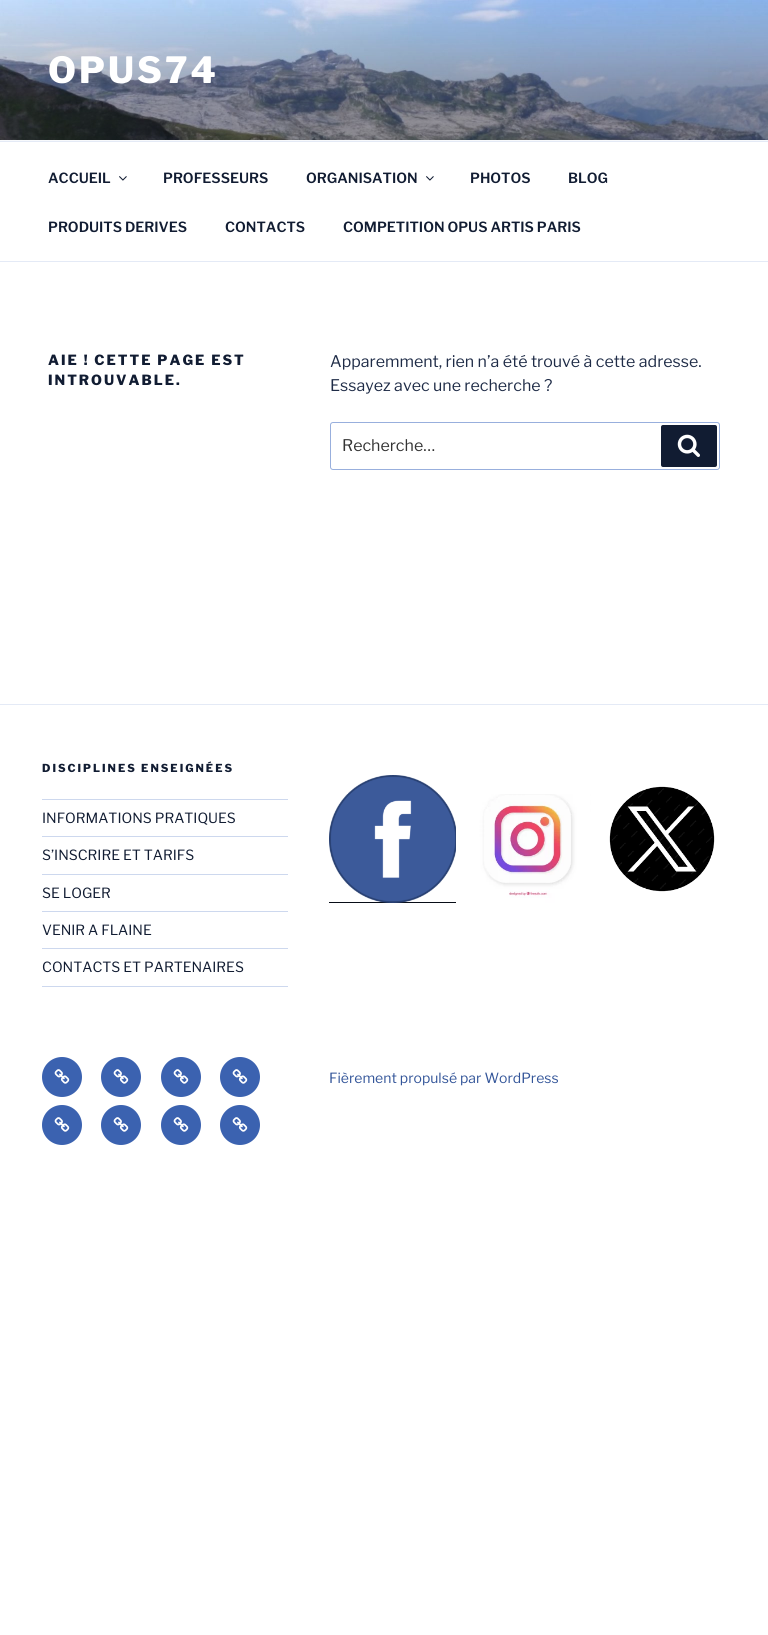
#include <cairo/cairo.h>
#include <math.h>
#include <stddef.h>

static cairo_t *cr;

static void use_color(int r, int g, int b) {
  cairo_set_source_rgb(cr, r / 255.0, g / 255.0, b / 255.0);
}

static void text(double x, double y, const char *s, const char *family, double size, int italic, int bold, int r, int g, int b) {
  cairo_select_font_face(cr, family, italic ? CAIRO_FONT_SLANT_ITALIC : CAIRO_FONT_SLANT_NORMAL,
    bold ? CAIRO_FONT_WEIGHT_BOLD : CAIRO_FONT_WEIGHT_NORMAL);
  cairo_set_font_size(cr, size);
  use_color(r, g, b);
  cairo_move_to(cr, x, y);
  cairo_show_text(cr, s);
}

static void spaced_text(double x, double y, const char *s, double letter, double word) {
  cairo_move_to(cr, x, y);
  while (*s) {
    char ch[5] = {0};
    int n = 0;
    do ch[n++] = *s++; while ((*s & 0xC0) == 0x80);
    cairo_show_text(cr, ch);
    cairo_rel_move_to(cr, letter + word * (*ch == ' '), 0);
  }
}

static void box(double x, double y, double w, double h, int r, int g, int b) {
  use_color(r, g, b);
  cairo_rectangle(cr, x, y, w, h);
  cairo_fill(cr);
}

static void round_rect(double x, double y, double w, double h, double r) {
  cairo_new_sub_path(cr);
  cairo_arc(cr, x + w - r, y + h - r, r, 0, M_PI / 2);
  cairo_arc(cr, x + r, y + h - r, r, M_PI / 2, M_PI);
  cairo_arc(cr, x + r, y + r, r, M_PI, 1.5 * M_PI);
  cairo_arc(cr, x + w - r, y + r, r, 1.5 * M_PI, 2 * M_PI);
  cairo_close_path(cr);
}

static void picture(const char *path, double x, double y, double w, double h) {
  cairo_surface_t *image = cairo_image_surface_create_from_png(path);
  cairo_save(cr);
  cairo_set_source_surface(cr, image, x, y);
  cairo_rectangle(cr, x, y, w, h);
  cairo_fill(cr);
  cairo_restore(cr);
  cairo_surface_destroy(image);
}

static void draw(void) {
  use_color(255, 255, 255);
  cairo_paint(cr);
  box(0, 140, 768, 1, 247, 249, 252);
  picture("img_01.png", 0, 0, 768, 140);
  box(0, 141, 768, 1, 228, 234, 246);
  box(0, 261, 768, 1, 228, 234, 246);
  picture("img_02.png", 119, 176, 8, 5);
  picture("img_02.png", 426, 176, 8, 5);
  round_rect(330.5, 422.5, 389, 47, 2.5);
  use_color(152, 175, 221);
  cairo_set_line_width(cr, 1);
  cairo_stroke(cr);
  use_color(17, 28, 50);
  round_rect(661, 425, 56, 42, 2);
  cairo_fill(cr);
  picture("img_03.png", 677, 434, 23, 23);
  box(0, 704, 768, 1, 228, 234, 246);
  box(42, 799, 246, 1, 205, 216, 238);
  box(42, 836, 246, 1, 205, 216, 238);
  box(42, 874, 246, 1, 205, 216, 238);
  box(42, 911, 246, 1, 205, 216, 238);
  box(42, 948, 246, 1, 205, 216, 238);
  box(42, 986, 246, 1, 205, 216, 238);
  box(329, 902, 128, 1, 8, 13, 23);
  picture("img_04.png", 329, 775, 127, 128);
  cairo_rectangle(cr, 460, 771, 135, 136);
  use_color(255, 255, 255);
  cairo_set_line_width(cr, 8);
  cairo_stroke(cr);
  picture("img_05.png", 464, 794, 127, 109);
  picture("img_06.png", 598, 786, 128, 117);
  use_color(59, 98, 176);
  cairo_arc(cr, 62, 1077, 20, 0, 2 * M_PI);
  cairo_fill(cr);
  picture("img_07.png", 54, 1069, 16, 15);
  cairo_arc(cr, 121, 1077, 20, 0, 2 * M_PI);
  cairo_fill(cr);
  picture("img_07.png", 113, 1069, 16, 15);
  cairo_arc(cr, 181, 1077, 20, 0, 2 * M_PI);
  cairo_fill(cr);
  picture("img_07.png", 173, 1069, 16, 15);
  cairo_arc(cr, 240, 1077, 20, 0, 2 * M_PI);
  cairo_fill(cr);
  picture("img_07.png", 232, 1069, 16, 15);
  cairo_arc(cr, 62, 1125, 20, 0, 2 * M_PI);
  cairo_fill(cr);
  picture("img_07.png", 54, 1117, 16, 15);
  cairo_arc(cr, 121, 1125, 20, 0, 2 * M_PI);
  cairo_fill(cr);
  picture("img_07.png", 113, 1117, 16, 15);
  cairo_arc(cr, 181, 1125, 20, 0, 2 * M_PI);
  cairo_fill(cr);
  picture("img_07.png", 173, 1117, 16, 15);
  cairo_arc(cr, 240, 1125, 20, 0, 2 * M_PI);
  cairo_fill(cr);
  picture("img_07.png", 232, 1117, 16, 15);
  cairo_select_font_face(cr, "Libre Franklin Thin", CAIRO_FONT_SLANT_NORMAL, CAIRO_FONT_WEIGHT_NORMAL);
  cairo_set_font_size(cr, 36);
  use_color(255, 255, 255);
  spaced_text(48, 83, "OPUS74", 3, 0);
  text(48, 183, "ACCUEIL", "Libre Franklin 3 Thin", 14, 0, 0, 17, 28, 50);
  text(163, 183, "PROFESSEURS", "Libre Franklin 3 Thin", 14, 0, 0, 17, 28, 50);
  text(306, 183, "ORGANISATION", "Libre Franklin 3 Thin", 14, 0, 0, 17, 28, 50);
  text(470, 183, "PHOTOS", "Libre Franklin 3 Thin", 14, 0, 0, 17, 28, 50);
  text(568, 183, "BLOG", "Libre Franklin 3 Thin", 14, 0, 0, 17, 28, 50);
  text(48, 232, "PRODUITS DERIVES", "Libre Franklin 3 Thin", 14, 0, 0, 17, 28, 50);
  text(225, 232, "CONTACTS", "Libre Franklin 3 Thin", 14, 0, 0, 17, 28, 50);
  text(343, 232, "COMPETITION OPUS ARTIS PARIS", "Libre Franklin 3 Thin", 14, 0, 0, 17, 28, 50);
  cairo_select_font_face(cr, "Libre Franklin Thin", CAIRO_FONT_SLANT_NORMAL, CAIRO_FONT_WEIGHT_NORMAL);
  spaced_text(48, 365, "AIE ! CETTE PAGE EST", 2, 0);
  spaced_text(48, 385, "INTROUVABLE.", 2, 0);
  text(330, 367, "Apparemment, rien n’a été trouvé à cette adresse.", "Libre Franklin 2 Thin", 16, 0, 0, 31, 44, 71);
  text(330, 391, "Essayez avec une recherche ?", "Libre Franklin 2 Thin", 16, 0, 0, 31, 44, 71);
  text(342, 451, "Recherche…", "Libre Franklin 2 Thin", 16, 0, 0, 51, 51, 51);
  cairo_select_font_face(cr, "Libre Franklin Thin", CAIRO_FONT_SLANT_NORMAL, CAIRO_FONT_WEIGHT_NORMAL);
  cairo_set_font_size(cr, 11);
  use_color(17, 28, 50);
  spaced_text(42, 772, "DISCIPLINES ENSEIGNÉES", 2, 0);
  text(42, 823, "INFORMATIONS PRATIQUES", "Libre Franklin 2 Thin", 14, 0, 0, 17, 28, 50);
  text(42, 860, "S’INSCRIRE ET TARIFS", "Libre Franklin 2 Thin", 14, 0, 0, 17, 28, 50);
  text(42, 898, "SE LOGER", "Libre Franklin 2 Thin", 14, 0, 0, 17, 28, 50);
  text(42, 935, "VENIR A FLAINE", "Libre Franklin 2 Thin", 14, 0, 0, 17, 28, 50);
  text(42, 972, "CONTACTS ET PARTENAIRES", "Libre Franklin 2 Thin", 14, 0, 0, 17, 28, 50);
  text(329, 1083, "Fièrement propulsé par WordPress", "Libre Franklin 2 Thin", 14, 0, 0, 51, 85, 153);
}

int main(void) {
  cairo_surface_t *surface = cairo_image_surface_create(CAIRO_FORMAT_RGB24, 768, 1635);
  cr = cairo_create(surface);
  cairo_font_options_t *options = cairo_font_options_create();
  cairo_font_options_set_hint_metrics(options, CAIRO_HINT_METRICS_OFF);
  cairo_font_options_set_hint_style(options, CAIRO_HINT_STYLE_NONE);
  cairo_set_font_options(cr, options);
  cairo_set_miter_limit(cr, 4);
  draw();
  cairo_surface_write_to_png(surface, "out.png");
  cairo_font_options_destroy(options);
  cairo_destroy(cr);
  cairo_surface_destroy(surface);
  return 0;
}
